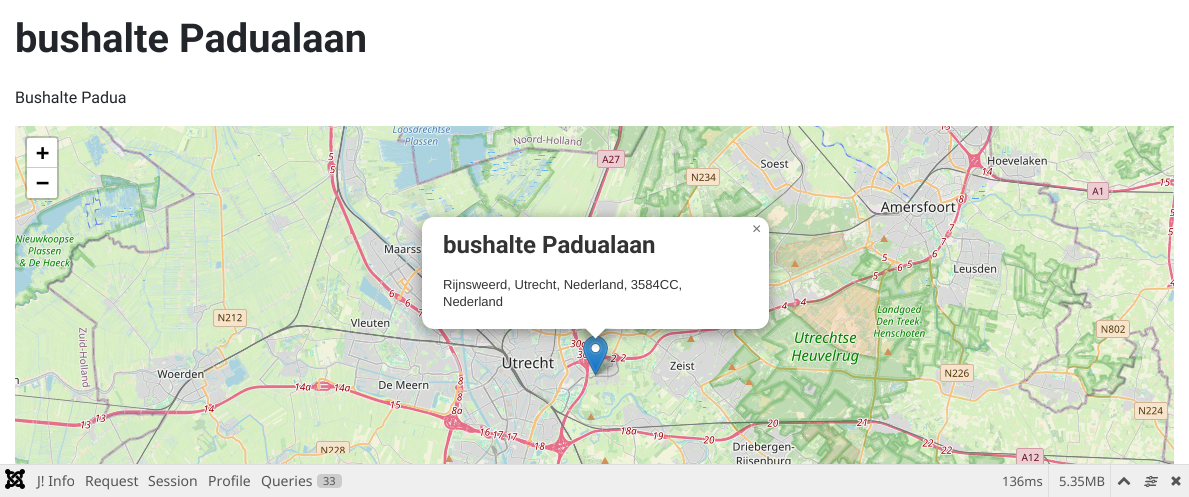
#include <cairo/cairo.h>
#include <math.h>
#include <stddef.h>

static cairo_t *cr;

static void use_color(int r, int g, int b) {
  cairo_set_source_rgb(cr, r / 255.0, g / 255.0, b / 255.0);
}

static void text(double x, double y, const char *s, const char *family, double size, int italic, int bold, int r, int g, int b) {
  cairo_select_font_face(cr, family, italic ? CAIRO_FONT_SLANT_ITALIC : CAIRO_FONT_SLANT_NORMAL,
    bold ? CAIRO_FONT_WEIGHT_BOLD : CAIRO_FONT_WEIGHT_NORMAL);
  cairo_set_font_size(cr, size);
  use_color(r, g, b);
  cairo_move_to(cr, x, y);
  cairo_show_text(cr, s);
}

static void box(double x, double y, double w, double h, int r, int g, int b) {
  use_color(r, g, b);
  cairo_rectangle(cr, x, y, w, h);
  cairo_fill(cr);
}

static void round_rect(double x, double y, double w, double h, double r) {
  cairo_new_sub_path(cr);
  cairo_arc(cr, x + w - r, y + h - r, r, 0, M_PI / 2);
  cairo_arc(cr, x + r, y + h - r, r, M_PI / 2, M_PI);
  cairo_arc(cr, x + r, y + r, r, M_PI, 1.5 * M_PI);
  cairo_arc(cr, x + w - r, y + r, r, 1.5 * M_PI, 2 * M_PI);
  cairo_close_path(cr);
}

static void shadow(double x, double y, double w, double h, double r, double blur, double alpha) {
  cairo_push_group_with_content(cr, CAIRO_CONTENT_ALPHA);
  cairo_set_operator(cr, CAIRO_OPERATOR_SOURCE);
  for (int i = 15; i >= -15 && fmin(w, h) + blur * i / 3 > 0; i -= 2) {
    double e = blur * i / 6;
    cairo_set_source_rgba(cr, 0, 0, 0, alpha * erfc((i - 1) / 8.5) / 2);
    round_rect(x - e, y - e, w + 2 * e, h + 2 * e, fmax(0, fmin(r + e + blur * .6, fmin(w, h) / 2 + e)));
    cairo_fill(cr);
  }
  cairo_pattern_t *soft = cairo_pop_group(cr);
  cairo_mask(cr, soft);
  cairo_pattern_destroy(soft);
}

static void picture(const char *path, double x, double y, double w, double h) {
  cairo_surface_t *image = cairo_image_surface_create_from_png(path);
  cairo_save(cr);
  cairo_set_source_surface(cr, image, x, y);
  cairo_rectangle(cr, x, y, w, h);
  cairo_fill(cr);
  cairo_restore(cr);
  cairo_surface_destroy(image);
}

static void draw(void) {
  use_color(255, 255, 255);
  cairo_paint(cr);
  picture("img_01.png", 15, 126, 222, 71);
  picture("img_06.png", 15, 197, 222, 256);
  round_rect(26, 137, 32, 62, 3);
  cairo_set_source_rgba(cr, 0, 0, 0, 0.2);
  cairo_stroke(cr);
  use_color(255, 255, 255);
  cairo_new_path(cr);
  cairo_move_to(cr, 29, 138);
  cairo_line_to(cr, 55, 138);
  cairo_curve_to(cr, 56, 138, 57, 139, 57, 140);
  cairo_line_to(cr, 57, 168);
  cairo_line_to(cr, 27, 168);
  cairo_line_to(cr, 27, 140);
  cairo_curve_to(cr, 27, 139, 28, 138, 29, 138);
  cairo_close_path(cr);
  cairo_fill(cr);
  box(27, 167, 30, 1, 204, 204, 204);
  use_color(255, 255, 255);
  cairo_new_path(cr);
  cairo_move_to(cr, 27, 168);
  cairo_line_to(cr, 57, 168);
  cairo_line_to(cr, 57, 196);
  cairo_curve_to(cr, 57, 197, 56, 198, 55, 198);
  cairo_line_to(cr, 29, 198);
  cairo_curve_to(cr, 28, 198, 27, 197, 27, 196);
  cairo_close_path(cr);
  cairo_fill(cr);
  picture("img_02.png", 237, 126, 256, 71);
  picture("img_03.png", 493, 126, 256, 71);
  picture("img_04.png", 749, 126, 256, 71);
  picture("img_05.png", 1005, 126, 169, 71);
  picture("img_07.png", 237, 197, 256, 256);
  picture("img_08.png", 493, 197, 256, 256);
  picture("img_09.png", 749, 197, 256, 256);
  picture("img_10.png", 1005, 197, 169, 256);
  picture("img_11.png", 15, 453, 222, 11);
  picture("img_12.png", 237, 453, 256, 11);
  picture("img_13.png", 493, 453, 256, 11);
  picture("img_14.png", 749, 453, 256, 11);
  picture("img_15.png", 1005, 453, 169, 11);
  picture("img_17.png", 593, 348, 29, 28);
  picture("img_16.png", 583, 336, 25, 40);
  use_color(0, 0, 0);
  shadow(422, 220, 347, 112, 12, 7, 0.4);
  use_color(255, 255, 255);
  round_rect(422, 217, 347, 112, 12);
  cairo_fill(cr);
  cairo_save(cr);
  cairo_rectangle(cr, 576, 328, 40, 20);
  cairo_clip(cr);
  use_color(0, 0, 0);
  shadow(587, 321, 17, 17, 0, 7, 0.4);
  cairo_restore(cr);
  cairo_save(cr);
  cairo_rectangle(cr, 576, 328, 40, 20);
  cairo_clip(cr);
  cairo_new_path(cr);
  cairo_move_to(cr, 595.5, 314.5);
  cairo_line_to(cr, 607.5, 326.5);
  cairo_line_to(cr, 595.5, 338.5);
  cairo_line_to(cr, 583.5, 326.5);
  cairo_close_path(cr);
  cairo_fill(cr);
  cairo_restore(cr);
  box(0, 464, 1189, 1, 221, 221, 221);
  box(0, 465, 1189, 32, 239, 239, 239);
  picture("img_18.png", 5, 469, 20, 20);
  use_color(204, 204, 204);
  round_rect(317, 474, 25, 14, 4);
  cairo_fill(cr);
  box(1048, 465, 1, 32, 221, 221, 221);
  box(1110, 465, 1, 32, 221, 221, 221);
  picture("img_19.png", 1117, 477, 14, 8);
  picture("img_20.png", 1144, 475, 14, 13);
  picture("img_21.png", 1171, 476, 10, 10);
  text(15, 52, "bushalte Padualaan", "Roboto", 39.75, 0, 1, 34, 38, 42);
  text(15, 103, "Bushalte Padua", "Roboto", 16, 0, 0, 34, 38, 42);
  text(36, 160, "+", "DejaVu Sans Mono", 22, 0, 1, 0, 0, 0);
  text(36, 190, "−", "DejaVu Sans Mono", 22, 0, 1, 0, 0, 0);
  text(752, 234, "×", "Liberation Sans", 16, 0, 0, 117, 117, 117);
  text(443, 253, "bushalte Padualaan", "Roboto", 24, 0, 1, 51, 51, 51);
  text(443, 289, "Rijnsweerd, Utrecht, Nederland, 3584CC,", "Liberation Sans", 13, 0, 0, 51, 51, 51);
  text(443, 306, "Nederland", "Liberation Sans", 13, 0, 0, 51, 51, 51);
  text(37, 486, "J! Info", "Noto Sans", 14, 0, 0, 85, 85, 85);
  text(85, 486, "Request", "Noto Sans", 14, 0, 0, 85, 85, 85);
  text(148, 486, "Session", "Noto Sans", 14, 0, 0, 85, 85, 85);
  text(208, 486, "Profile", "Noto Sans", 14, 0, 0, 85, 85, 85);
  text(261, 486, "Queries", "Noto Sans", 14, 0, 0, 85, 85, 85);
  text(323, 485, "33", "Noto Sans", 11, 0, 0, 85, 85, 85);
  text(1002, 486, "136ms", "Noto Sans", 13, 0, 0, 85, 85, 85);
  text(1059, 486, "5.35MB", "Noto Sans", 13, 0, 0, 85, 85, 85);
}

int main(void) {
  cairo_surface_t *surface = cairo_image_surface_create(CAIRO_FORMAT_RGB24, 1189, 497);
  cr = cairo_create(surface);
  cairo_font_options_t *options = cairo_font_options_create();
  cairo_font_options_set_hint_metrics(options, CAIRO_HINT_METRICS_OFF);
  cairo_font_options_set_hint_style(options, CAIRO_HINT_STYLE_NONE);
  cairo_set_font_options(cr, options);
  cairo_set_miter_limit(cr, 4);
  draw();
  cairo_surface_write_to_png(surface, "out.png");
  cairo_font_options_destroy(options);
  cairo_destroy(cr);
  cairo_surface_destroy(surface);
  return 0;
}
